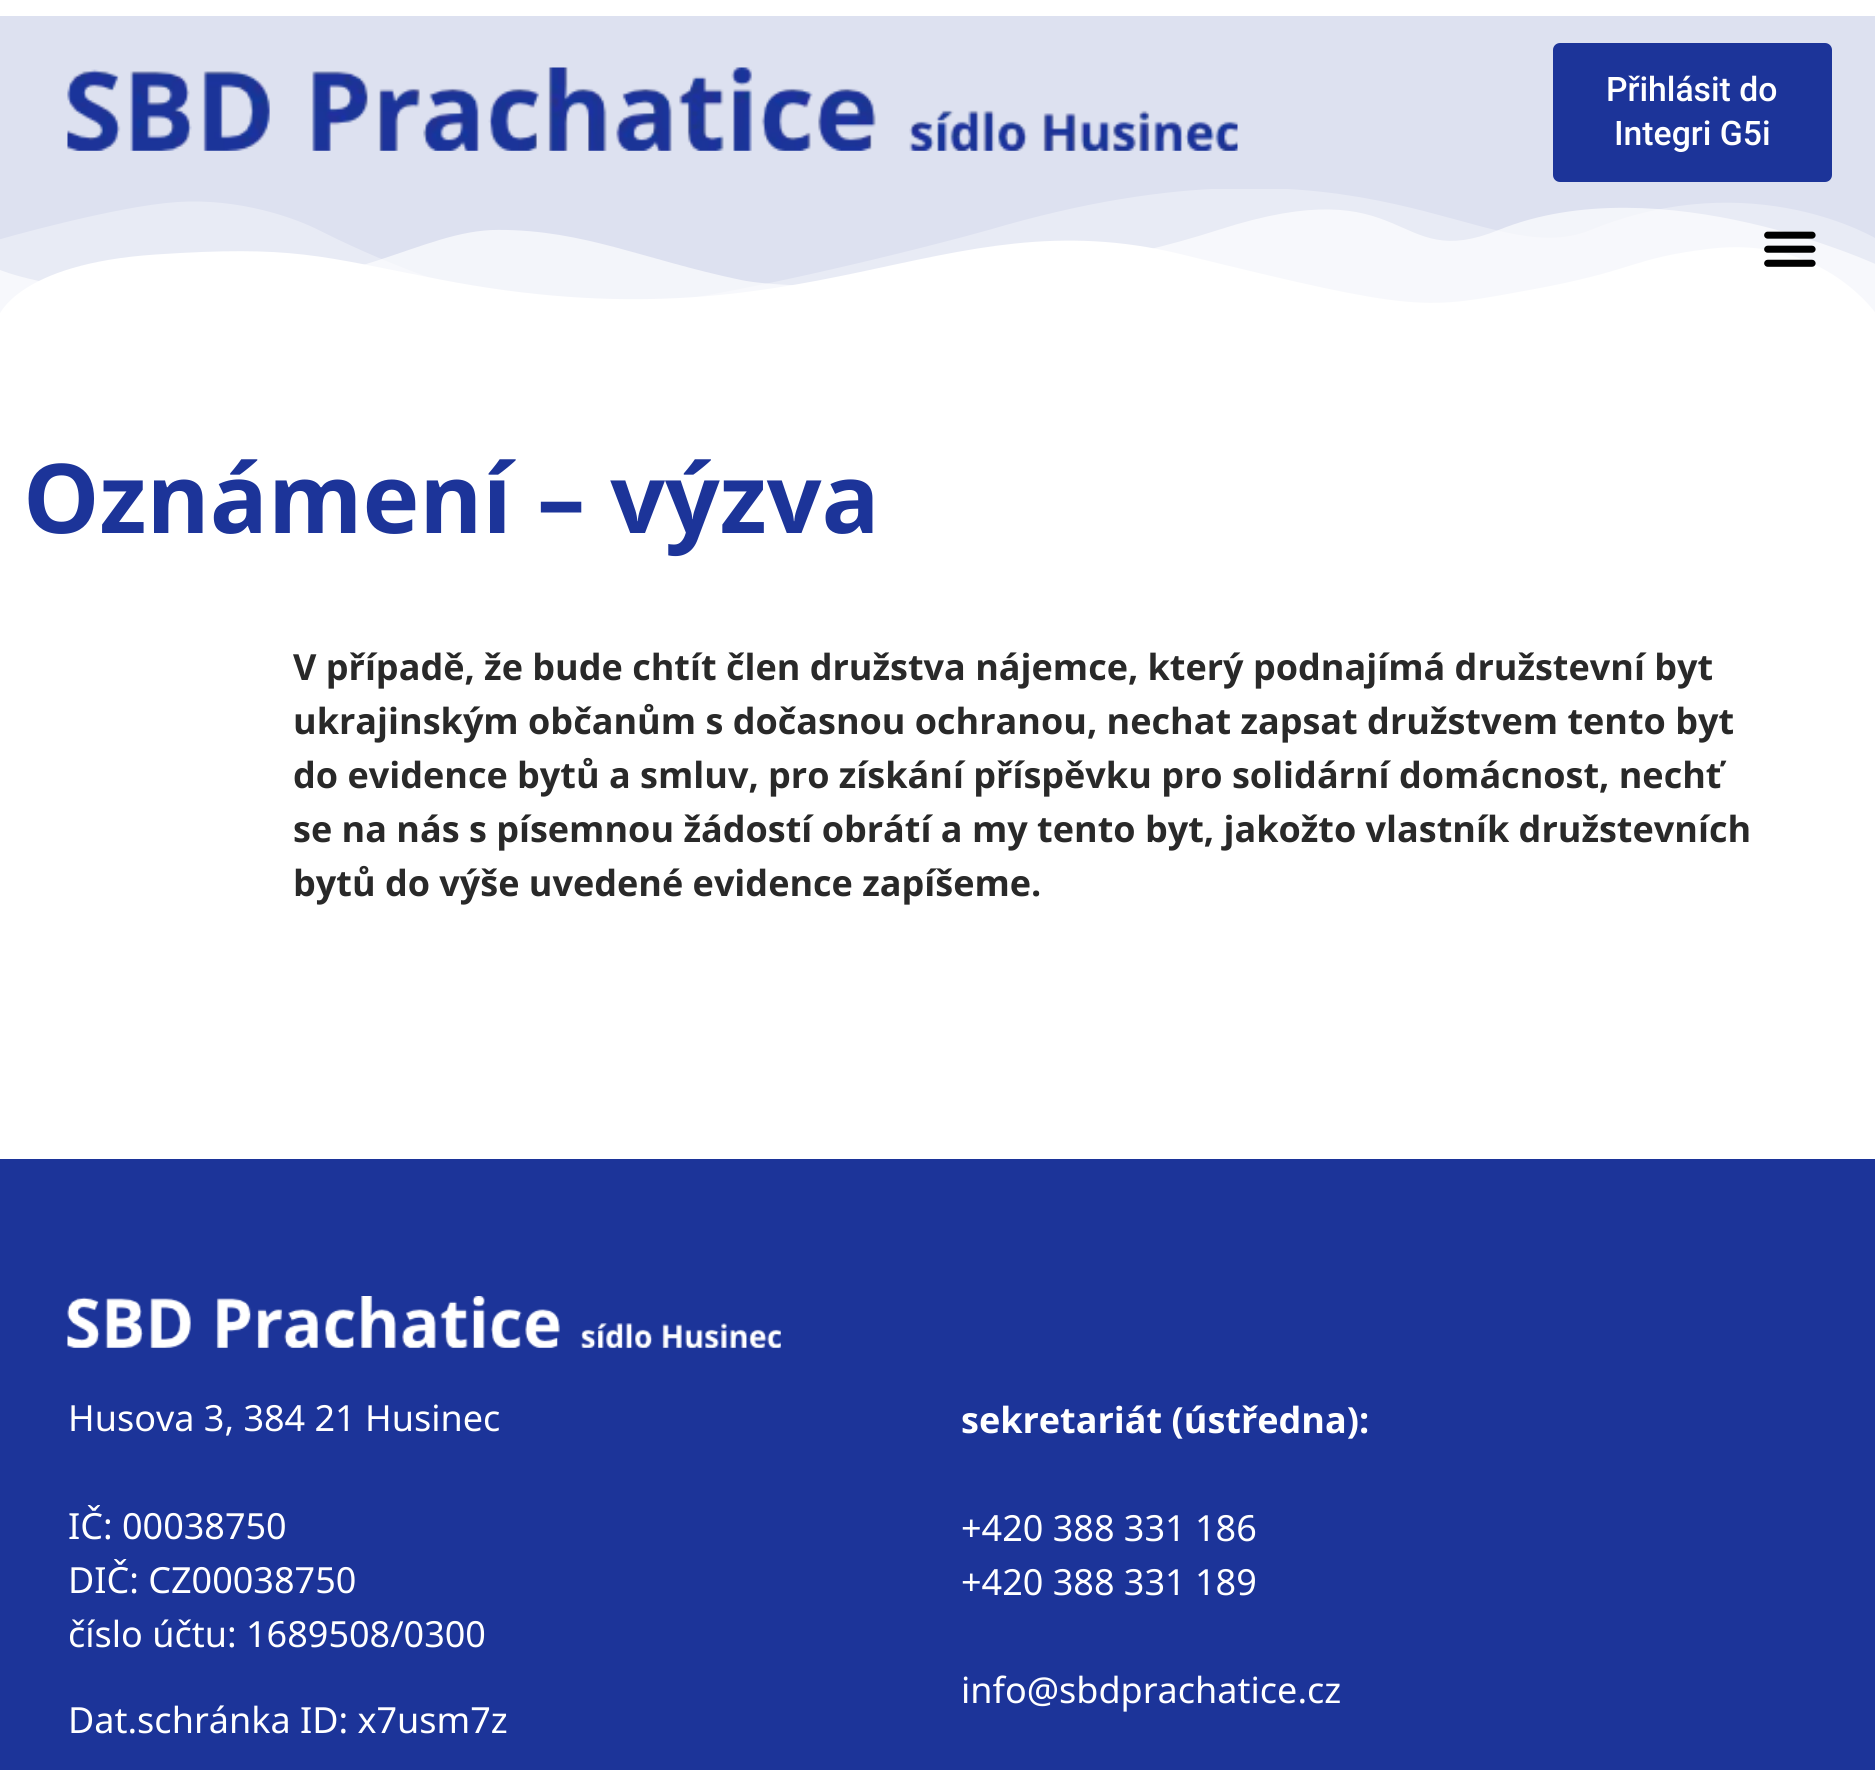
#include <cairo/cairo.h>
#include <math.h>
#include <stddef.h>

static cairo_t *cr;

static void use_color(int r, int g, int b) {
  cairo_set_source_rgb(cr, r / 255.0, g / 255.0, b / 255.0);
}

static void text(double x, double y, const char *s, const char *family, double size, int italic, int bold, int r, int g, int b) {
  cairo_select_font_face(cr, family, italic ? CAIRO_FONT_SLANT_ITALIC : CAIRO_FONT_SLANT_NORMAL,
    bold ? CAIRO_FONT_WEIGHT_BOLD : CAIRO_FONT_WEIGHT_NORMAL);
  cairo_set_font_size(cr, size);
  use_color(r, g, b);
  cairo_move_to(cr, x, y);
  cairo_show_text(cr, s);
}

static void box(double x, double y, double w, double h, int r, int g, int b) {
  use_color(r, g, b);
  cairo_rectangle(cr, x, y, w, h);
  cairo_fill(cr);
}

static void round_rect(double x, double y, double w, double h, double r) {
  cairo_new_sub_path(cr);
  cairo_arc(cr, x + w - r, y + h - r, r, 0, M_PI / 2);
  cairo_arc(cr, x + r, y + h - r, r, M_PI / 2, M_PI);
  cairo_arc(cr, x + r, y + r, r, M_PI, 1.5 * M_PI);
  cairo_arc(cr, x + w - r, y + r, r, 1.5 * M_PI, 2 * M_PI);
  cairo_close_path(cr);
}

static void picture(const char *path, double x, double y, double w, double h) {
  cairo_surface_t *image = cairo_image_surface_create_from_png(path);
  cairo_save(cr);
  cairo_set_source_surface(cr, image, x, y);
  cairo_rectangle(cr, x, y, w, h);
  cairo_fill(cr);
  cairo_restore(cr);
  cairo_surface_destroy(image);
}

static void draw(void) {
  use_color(255, 255, 255);
  cairo_paint(cr);
  box(0, 16, 1875, 297, 221, 225, 240);
  picture("img_01.png", 67, 67, 1171, 84);
  use_color(28, 52, 153);
  round_rect(1553, 43, 279, 139, 7);
  cairo_fill(cr);
  picture("img_03.png", 0, 189, 1875, 126);
  picture("img_02.png", 1764, 231, 52, 36);
  box(0, 1159, 1875, 611, 28, 52, 153);
  picture("img_04.png", 67, 1296, 714, 52);
  text(1606, 101, "Přihlásit do", "Roboto Medium", 33.75, 0, 0, 255, 255, 255);
  text(1614, 145, "Integri G5i", "Roboto Medium", 33.75, 0, 0, 255, 255, 255);
  text(23, 533, "Oznámení – výzva", "Noto Sans", 96.25, 0, 1, 28, 52, 153);
  text(293, 680, "V případě, že bude chtít člen družstva nájemce, který podnajímá družstevní byt", "Noto Sans", 36, 0, 1, 41, 41, 41);
  text(293, 734, "ukrajinským občanům s dočasnou ochranou, nechat zapsat družstvem tento byt", "Noto Sans", 36, 0, 1, 41, 41, 41);
  text(293, 788, "do evidence bytů a smluv, pro získání příspěvku pro solidární domácnost, nechť", "Noto Sans", 36, 0, 1, 41, 41, 41);
  text(293, 842, "se na nás s písemnou žádostí obrátí a my tento byt, jakožto vlastník družstevních", "Noto Sans", 36, 0, 1, 41, 41, 41);
  text(293, 896, "bytů do výše uvedené evidence zapíšeme.", "Noto Sans", 36, 0, 1, 41, 41, 41);
  text(68, 1431, "Husova 3, 384 21 Husinec", "Noto Sans", 36, 0, 0, 255, 255, 255);
  text(68, 1539, "IČ: 00038750", "Noto Sans", 36, 0, 0, 255, 255, 255);
  text(68, 1593, "DIČ: CZ00038750", "Noto Sans", 36, 0, 0, 255, 255, 255);
  text(68, 1647, "číslo účtu: 1689508/0300", "Noto Sans", 36, 0, 0, 255, 255, 255);
  text(68, 1733, "Dat.schránka ID: x7usm7z", "Noto Sans", 36, 0, 0, 255, 255, 255);
  text(961, 1433, "sekretariát (ústředna):", "Noto Sans", 36, 0, 1, 255, 255, 255);
  text(961, 1541, "+420 388 331 186", "Noto Sans", 36, 0, 0, 255, 255, 255);
  text(961, 1595, "+420 388 331 189", "Noto Sans", 36, 0, 0, 255, 255, 255);
  text(961, 1703, "info@sbdprachatice.cz", "Noto Sans", 36, 0, 0, 255, 255, 255);
}

int main(void) {
  cairo_surface_t *surface = cairo_image_surface_create(CAIRO_FORMAT_RGB24, 1875, 1770);
  cr = cairo_create(surface);
  cairo_font_options_t *options = cairo_font_options_create();
  cairo_font_options_set_hint_metrics(options, CAIRO_HINT_METRICS_OFF);
  cairo_font_options_set_hint_style(options, CAIRO_HINT_STYLE_NONE);
  cairo_set_font_options(cr, options);
  cairo_set_miter_limit(cr, 4);
  draw();
  cairo_surface_write_to_png(surface, "out.png");
  cairo_font_options_destroy(options);
  cairo_destroy(cr);
  cairo_surface_destroy(surface);
  return 0;
}
